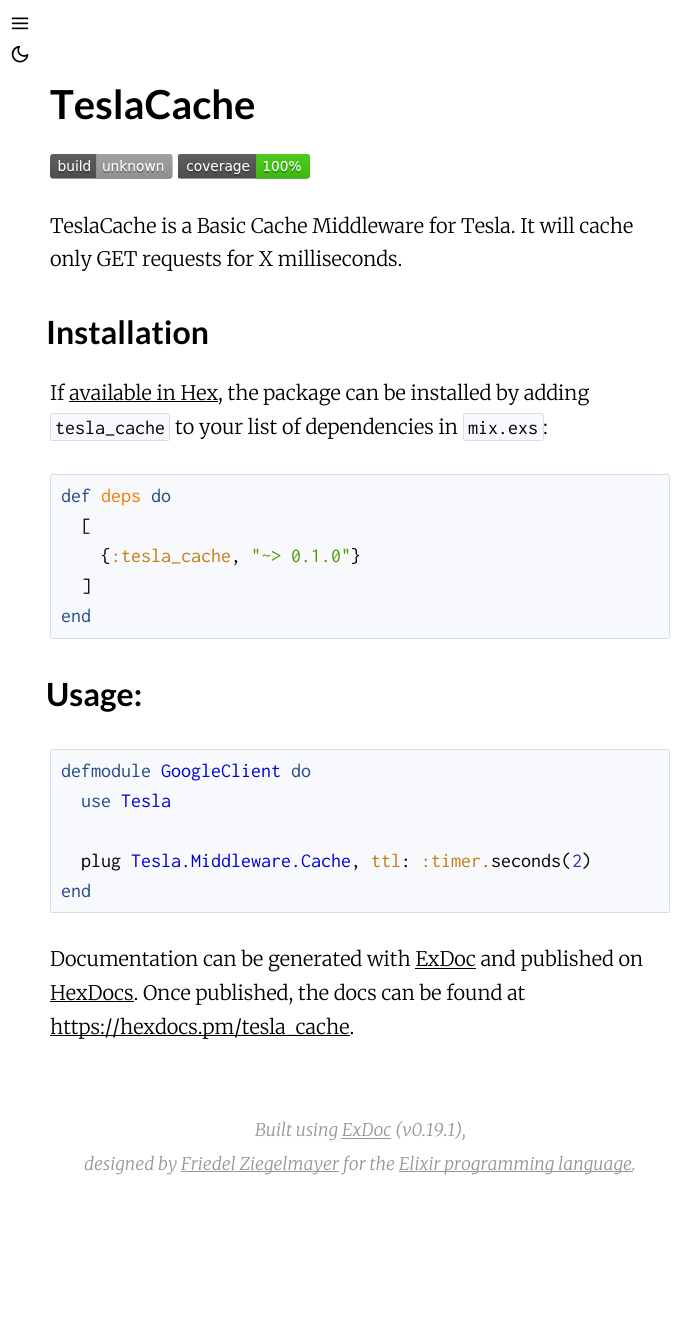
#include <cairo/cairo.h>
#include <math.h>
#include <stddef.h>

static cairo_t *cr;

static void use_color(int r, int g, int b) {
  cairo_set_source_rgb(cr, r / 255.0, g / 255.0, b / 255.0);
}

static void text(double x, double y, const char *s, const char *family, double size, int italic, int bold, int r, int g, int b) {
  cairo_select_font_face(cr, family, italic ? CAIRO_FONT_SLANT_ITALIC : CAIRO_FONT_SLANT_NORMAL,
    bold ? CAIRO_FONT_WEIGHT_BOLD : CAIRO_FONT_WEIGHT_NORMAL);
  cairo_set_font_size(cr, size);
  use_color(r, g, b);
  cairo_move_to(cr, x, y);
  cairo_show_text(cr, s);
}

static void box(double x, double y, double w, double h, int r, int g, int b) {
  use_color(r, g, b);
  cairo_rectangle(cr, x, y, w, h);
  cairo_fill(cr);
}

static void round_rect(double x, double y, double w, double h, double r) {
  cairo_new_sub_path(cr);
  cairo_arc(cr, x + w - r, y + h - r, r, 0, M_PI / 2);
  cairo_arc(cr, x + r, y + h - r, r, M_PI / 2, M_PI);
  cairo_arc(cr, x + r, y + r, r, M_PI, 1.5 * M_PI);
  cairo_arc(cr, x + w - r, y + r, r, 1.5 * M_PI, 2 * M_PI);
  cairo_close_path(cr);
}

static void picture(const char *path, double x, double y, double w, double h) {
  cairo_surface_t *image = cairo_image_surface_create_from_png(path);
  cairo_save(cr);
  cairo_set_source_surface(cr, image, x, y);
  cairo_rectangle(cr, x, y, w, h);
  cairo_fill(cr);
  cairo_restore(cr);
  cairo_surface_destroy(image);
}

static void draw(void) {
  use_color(255, 255, 255);
  cairo_paint(cr);
  picture("img_01.png", 11, 17, 18, 13);
  picture("img_02.png", 11, 45, 18, 18);
  picture("img_03.png", 50, 154, 123, 25);
  picture("img_04.png", 178, 154, 132, 25);
  box(69, 401, 149, 1, 0, 0, 0);
  use_color(247, 249, 252);
  round_rect(50.5, 413.5, 119, 27, 2);
  cairo_fill_preserve(cr);
  use_color(210, 221, 238);
  cairo_set_line_width(cr, 1);
  cairo_stroke(cr);
  use_color(247, 249, 252);
  round_rect(463.5, 413.5, 80, 27, 2);
  cairo_fill_preserve(cr);
  use_color(210, 221, 238);
  cairo_stroke(cr);
  use_color(247, 249, 252);
  round_rect(50.5, 474.5, 619, 164, 2);
  cairo_fill_preserve(cr);
  use_color(210, 221, 238);
  cairo_stroke(cr);
  use_color(247, 249, 252);
  round_rect(50.5, 749.5, 619, 163, 2);
  cairo_fill_preserve(cr);
  use_color(210, 221, 238);
  cairo_stroke(cr);
  box(415, 968, 61, 1, 0, 0, 0);
  box(50, 1001, 84, 1, 0, 0, 0);
  box(50, 1035, 300, 1, 0, 0, 0);
  box(341, 1138, 50, 1, 149, 149, 149);
  box(181, 1171, 158, 1, 149, 149, 149);
  box(399, 1171, 234, 1, 149, 149, 149);
  text(50, 119, "TeslaCache", "Lato", 40, 0, 1, 0, 0, 0);
  text(50, 233, "TeslaCache is a Basic Cache Middleware for Tesla. It will cache", "Merriweather Light", 20, 0, 0, 0, 0, 0);
  text(50, 266, "only GET requests for X milliseconds.", "Merriweather Light", 20, 0, 0, 0, 0, 0);
  text(46, 344, "Installation", "Lato", 32, 0, 1, 0, 0, 0);
  text(50, 400, "If available in Hex, the package can be installed by adding", "Merriweather Light", 20, 0, 0, 0, 0, 0);
  text(55, 434, "tesla_cache", "Inconsolata", 20, 0, 0, 0, 0, 0);
  text(175, 434, "to your list of dependencies in", "Merriweather Light", 20, 0, 0, 0, 0, 0);
  text(468, 434, "mix.exs", "Inconsolata", 20, 0, 0, 0, 0, 0);
  text(543, 434, ":", "Merriweather Light", 20, 0, 0, 0, 0, 0);
  text(61, 502, "def", "Inconsolata", 20, 0, 0, 32, 74, 135);
  text(101, 502, "deps", "Inconsolata", 20, 0, 0, 245, 121, 0);
  text(151, 502, "do", "Inconsolata", 20, 0, 0, 32, 74, 135);
  text(81, 532, "[", "Inconsolata", 20, 0, 0, 0, 0, 0);
  text(101, 562, "{", "Inconsolata", 20, 0, 0, 0, 0, 0);
  text(111, 562, ":tesla_cache", "Inconsolata", 20, 0, 0, 193, 125, 17);
  text(231, 562, ",", "Inconsolata", 20, 0, 0, 0, 0, 0);
  text(251, 562, "\"~> 0.1.0\"", "Inconsolata", 20, 0, 0, 78, 154, 6);
  text(351, 562, "}", "Inconsolata", 20, 0, 0, 0, 0, 0);
  text(81, 592, "]", "Inconsolata", 20, 0, 0, 0, 0, 0);
  text(61, 622, "end", "Inconsolata", 20, 0, 0, 32, 74, 135);
  text(46, 706, "Usage:", "Lato", 32, 0, 1, 0, 0, 0);
  text(61, 777, "defmodule", "Inconsolata", 20, 0, 0, 32, 74, 135);
  text(161, 777, "GoogleClient", "Inconsolata", 20, 0, 0, 0, 0, 207);
  text(291, 777, "do", "Inconsolata", 20, 0, 0, 32, 74, 135);
  text(81, 807, "use", "Inconsolata", 20, 0, 0, 32, 74, 135);
  text(121, 807, "Tesla", "Inconsolata", 20, 0, 0, 0, 0, 207);
  text(81, 867, "plug", "Inconsolata", 20, 0, 0, 0, 0, 0);
  text(131, 867, "Tesla.Middleware.Cache", "Inconsolata", 20, 0, 0, 0, 0, 207);
  text(371, 867, "ttl", "Inconsolata", 20, 0, 0, 193, 125, 17);
  text(421, 867, ":timer", "Inconsolata", 20, 0, 0, 193, 125, 17);
  text(491, 867, "seconds( )", "Inconsolata", 20, 0, 0, 0, 0, 0);
  text(351, 867, ",", "Inconsolata", 20, 0, 0, 0, 0, 0);
  text(401, 867, ":", "Inconsolata", 20, 0, 0, 0, 0, 0);
  text(481, 867, ".", "Inconsolata", 20, 0, 0, 206, 92, 0);
  text(572, 867, "2", "Inconsolata", 20, 0, 0, 41, 55, 171);
  text(61, 897, "end", "Inconsolata", 20, 0, 0, 32, 74, 135);
  text(50, 966, "Documentation can be generated with ExDoc and published on", "Merriweather Light", 20, 0, 0, 0, 0, 0);
  text(50, 1000, "HexDocs. Once published, the docs can be found at", "Merriweather Light", 20, 0, 0, 0, 0, 0);
  text(50, 1034, "https://hexdocs.pm/tesla_cache.", "Merriweather Light", 20, 0, 0, 0, 0, 0);
  text(255, 1136, "Built using ExDoc (v0.19.1),", "Merriweather Light", 17.5, 1, 0, 149, 149, 149);
  text(84, 1170, "designed by", "Merriweather Light", 17.5, 1, 0, 149, 149, 149);
  text(181, 1170, "Friedel Ziegelmayer for the", "Merriweather Light", 17.5, 1, 0, 149, 149, 149);
  text(399, 1170, "Elixir programming language.", "Merriweather Light", 17.5, 1, 0, 149, 149, 149);
}

int main(void) {
  cairo_surface_t *surface = cairo_image_surface_create(CAIRO_FORMAT_RGB24, 695, 1337);
  cr = cairo_create(surface);
  cairo_font_options_t *options = cairo_font_options_create();
  cairo_font_options_set_hint_metrics(options, CAIRO_HINT_METRICS_OFF);
  cairo_font_options_set_hint_style(options, CAIRO_HINT_STYLE_NONE);
  cairo_set_font_options(cr, options);
  cairo_set_miter_limit(cr, 4);
  draw();
  cairo_surface_write_to_png(surface, "out.png");
  cairo_font_options_destroy(options);
  cairo_destroy(cr);
  cairo_surface_destroy(surface);
  return 0;
}
